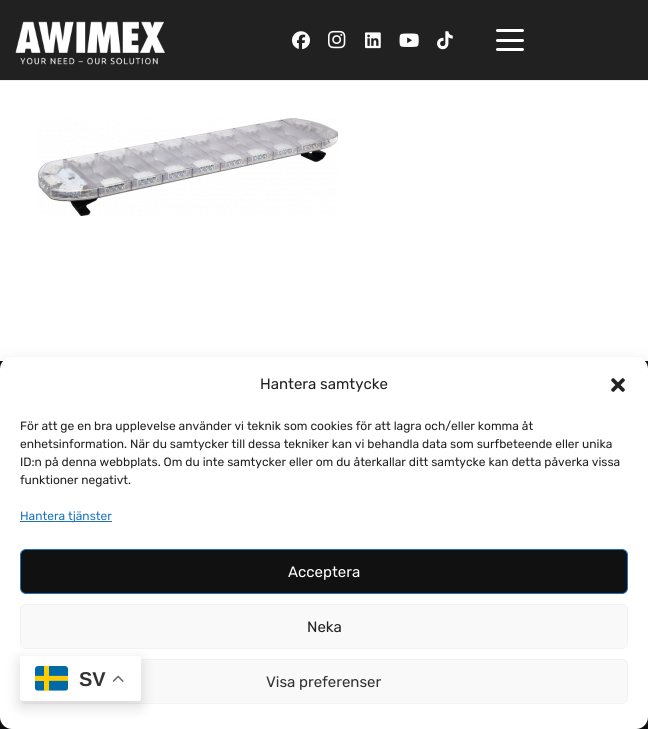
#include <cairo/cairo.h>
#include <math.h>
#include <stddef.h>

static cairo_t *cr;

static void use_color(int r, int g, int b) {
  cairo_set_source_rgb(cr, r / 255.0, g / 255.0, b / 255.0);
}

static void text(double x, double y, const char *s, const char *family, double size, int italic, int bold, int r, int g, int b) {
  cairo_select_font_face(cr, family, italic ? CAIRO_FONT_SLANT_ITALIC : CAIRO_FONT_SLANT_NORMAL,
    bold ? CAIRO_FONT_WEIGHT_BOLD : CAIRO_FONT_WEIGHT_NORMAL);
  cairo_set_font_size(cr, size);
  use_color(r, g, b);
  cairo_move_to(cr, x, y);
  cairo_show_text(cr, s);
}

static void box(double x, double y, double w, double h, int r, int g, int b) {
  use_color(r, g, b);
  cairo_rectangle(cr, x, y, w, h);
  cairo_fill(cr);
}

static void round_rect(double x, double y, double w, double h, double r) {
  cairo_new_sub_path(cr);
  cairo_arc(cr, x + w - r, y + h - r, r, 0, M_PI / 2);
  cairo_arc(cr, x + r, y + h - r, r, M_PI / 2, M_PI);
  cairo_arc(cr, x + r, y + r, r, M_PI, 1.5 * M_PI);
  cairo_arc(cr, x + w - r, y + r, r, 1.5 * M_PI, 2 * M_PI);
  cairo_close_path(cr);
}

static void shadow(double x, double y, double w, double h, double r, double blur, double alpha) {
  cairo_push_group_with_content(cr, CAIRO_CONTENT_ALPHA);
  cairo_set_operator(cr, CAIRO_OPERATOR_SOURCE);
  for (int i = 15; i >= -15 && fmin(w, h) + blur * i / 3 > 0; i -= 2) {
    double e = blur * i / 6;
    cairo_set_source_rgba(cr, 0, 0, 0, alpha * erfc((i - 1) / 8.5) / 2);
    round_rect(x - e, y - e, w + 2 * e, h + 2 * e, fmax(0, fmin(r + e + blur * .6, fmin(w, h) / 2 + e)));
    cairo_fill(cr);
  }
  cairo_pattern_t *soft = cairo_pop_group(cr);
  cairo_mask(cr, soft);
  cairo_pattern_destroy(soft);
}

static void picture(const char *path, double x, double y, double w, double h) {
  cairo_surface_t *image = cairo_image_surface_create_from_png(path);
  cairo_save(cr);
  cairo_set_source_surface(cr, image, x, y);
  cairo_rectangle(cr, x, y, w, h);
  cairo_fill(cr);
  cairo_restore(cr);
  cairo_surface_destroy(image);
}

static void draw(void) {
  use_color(255, 255, 255);
  cairo_paint(cr);
  box(0, 80, 648, 1, 235, 235, 235);
  box(0, 0, 648, 80, 33, 33, 33);
  picture("img_01.png", 15, 21, 150, 44);
  picture("img_02.png", 292, 31, 18, 19);
  picture("img_03.png", 328, 30, 18, 19);
  picture("img_04.png", 365, 32, 16, 17);
  picture("img_05.png", 399, 33, 20, 14);
  picture("img_06.png", 437, 31, 16, 19);
  use_color(255, 255, 255);
  round_rect(496, 39, 28, 3, 1.5);
  cairo_fill(cr);
  round_rect(496, 29, 28, 3, 1.5);
  cairo_fill(cr);
  round_rect(496, 48, 28, 3, 1.5);
  cairo_fill(cr);
  picture("img_07.png", 38, 118, 300, 98);
  box(0, 361, 648, 8, 17, 17, 17);
  box(0, 717, 648, 12, 17, 17, 17);
  use_color(0, 0, 0);
  shadow(0, 363, 648, 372, 12, 3, 0.23);
  shadow(0, 367, 648, 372, 12, 10, 0.19);
  use_color(255, 255, 255);
  round_rect(0, 357, 648, 372, 12);
  cairo_fill(cr);
  picture("img_08.png", 611, 378, 14, 14);
  box(20, 521, 92, 1, 30, 115, 190);
  use_color(17, 17, 17);
  round_rect(20.5, 549.5, 607, 44, 5.5);
  cairo_fill_preserve(cr);
  use_color(30, 115, 190);
  cairo_set_line_width(cr, 1);
  cairo_stroke(cr);
  use_color(249, 249, 249);
  round_rect(20.5, 604.5, 607, 44, 5.5);
  cairo_fill_preserve(cr);
  use_color(242, 242, 242);
  cairo_stroke(cr);
  use_color(249, 249, 249);
  round_rect(20.5, 659.5, 607, 44, 5.5);
  cairo_fill_preserve(cr);
  use_color(242, 242, 242);
  cairo_stroke(cr);
  use_color(0, 0, 0);
  shadow(20, 661, 121, 45, 2, 7.5, 0.15);
  use_color(255, 255, 255);
  round_rect(20, 656, 121, 45, 2);
  cairo_fill(cr);
  picture("img_09.png", 35, 666, 33, 25);
  picture("img_10.png", 113, 675, 11, 7);
  text(260, 389, "Hantera samtycke", "Rubik", 15, 0, 0, 34, 34, 34);
  text(20, 430, "För att ge en bra upplevelse använder vi teknik som cookies för att lagra och/eller komma åt", "Rubik", 12, 0, 0, 34, 34, 34);
  text(20, 448, "enhetsinformation. När du samtycker till dessa tekniker kan vi behandla data som surfbeteende eller unika", "Rubik", 12, 0, 0, 34, 34, 34);
  text(20, 466, "ID:n på denna webbplats. Om du inte samtycker eller om du återkallar ditt samtycke kan detta påverka vissa", "Rubik", 12, 0, 0, 34, 34, 34);
  text(20, 484, "funktioner negativt.", "Rubik", 12, 0, 0, 34, 34, 34);
  text(20, 520, "Hantera tjänster", "Rubik", 12, 0, 0, 30, 115, 190);
  text(288, 577, "Acceptera", "Rubik", 15, 0, 0, 255, 255, 255);
  text(307, 632, "Neka", "Rubik", 15, 0, 0, 34, 34, 34);
  text(266, 687, "Visa preferenser", "Rubik", 15, 0, 0, 51, 51, 51);
  text(79, 686, "SV", "Liberation Sans", 20, 0, 1, 51, 51, 51);
}

int main(void) {
  cairo_surface_t *surface = cairo_image_surface_create(CAIRO_FORMAT_RGB24, 648, 729);
  cr = cairo_create(surface);
  cairo_font_options_t *options = cairo_font_options_create();
  cairo_font_options_set_hint_metrics(options, CAIRO_HINT_METRICS_OFF);
  cairo_font_options_set_hint_style(options, CAIRO_HINT_STYLE_NONE);
  cairo_set_font_options(cr, options);
  cairo_set_miter_limit(cr, 4);
  draw();
  cairo_surface_write_to_png(surface, "out.png");
  cairo_font_options_destroy(options);
  cairo_destroy(cr);
  cairo_surface_destroy(surface);
  return 0;
}
